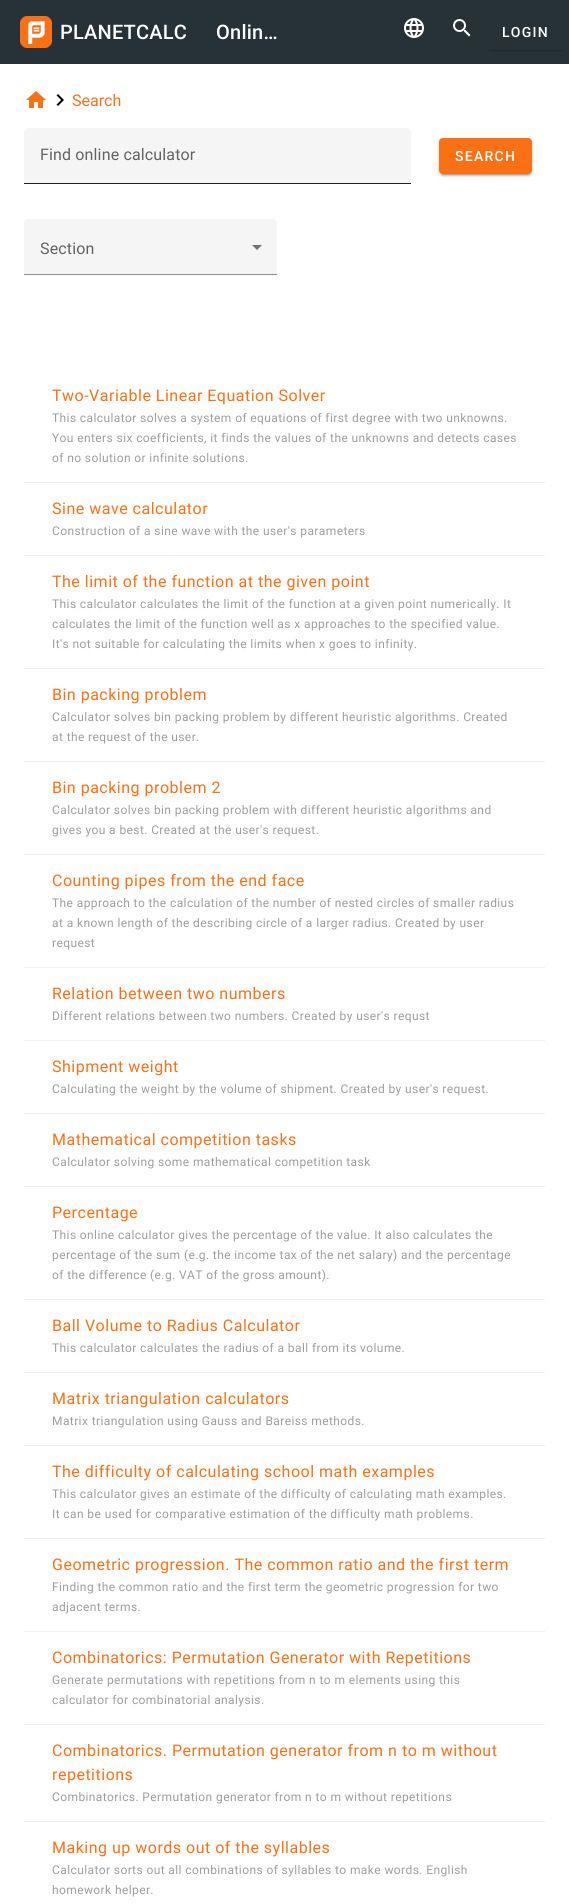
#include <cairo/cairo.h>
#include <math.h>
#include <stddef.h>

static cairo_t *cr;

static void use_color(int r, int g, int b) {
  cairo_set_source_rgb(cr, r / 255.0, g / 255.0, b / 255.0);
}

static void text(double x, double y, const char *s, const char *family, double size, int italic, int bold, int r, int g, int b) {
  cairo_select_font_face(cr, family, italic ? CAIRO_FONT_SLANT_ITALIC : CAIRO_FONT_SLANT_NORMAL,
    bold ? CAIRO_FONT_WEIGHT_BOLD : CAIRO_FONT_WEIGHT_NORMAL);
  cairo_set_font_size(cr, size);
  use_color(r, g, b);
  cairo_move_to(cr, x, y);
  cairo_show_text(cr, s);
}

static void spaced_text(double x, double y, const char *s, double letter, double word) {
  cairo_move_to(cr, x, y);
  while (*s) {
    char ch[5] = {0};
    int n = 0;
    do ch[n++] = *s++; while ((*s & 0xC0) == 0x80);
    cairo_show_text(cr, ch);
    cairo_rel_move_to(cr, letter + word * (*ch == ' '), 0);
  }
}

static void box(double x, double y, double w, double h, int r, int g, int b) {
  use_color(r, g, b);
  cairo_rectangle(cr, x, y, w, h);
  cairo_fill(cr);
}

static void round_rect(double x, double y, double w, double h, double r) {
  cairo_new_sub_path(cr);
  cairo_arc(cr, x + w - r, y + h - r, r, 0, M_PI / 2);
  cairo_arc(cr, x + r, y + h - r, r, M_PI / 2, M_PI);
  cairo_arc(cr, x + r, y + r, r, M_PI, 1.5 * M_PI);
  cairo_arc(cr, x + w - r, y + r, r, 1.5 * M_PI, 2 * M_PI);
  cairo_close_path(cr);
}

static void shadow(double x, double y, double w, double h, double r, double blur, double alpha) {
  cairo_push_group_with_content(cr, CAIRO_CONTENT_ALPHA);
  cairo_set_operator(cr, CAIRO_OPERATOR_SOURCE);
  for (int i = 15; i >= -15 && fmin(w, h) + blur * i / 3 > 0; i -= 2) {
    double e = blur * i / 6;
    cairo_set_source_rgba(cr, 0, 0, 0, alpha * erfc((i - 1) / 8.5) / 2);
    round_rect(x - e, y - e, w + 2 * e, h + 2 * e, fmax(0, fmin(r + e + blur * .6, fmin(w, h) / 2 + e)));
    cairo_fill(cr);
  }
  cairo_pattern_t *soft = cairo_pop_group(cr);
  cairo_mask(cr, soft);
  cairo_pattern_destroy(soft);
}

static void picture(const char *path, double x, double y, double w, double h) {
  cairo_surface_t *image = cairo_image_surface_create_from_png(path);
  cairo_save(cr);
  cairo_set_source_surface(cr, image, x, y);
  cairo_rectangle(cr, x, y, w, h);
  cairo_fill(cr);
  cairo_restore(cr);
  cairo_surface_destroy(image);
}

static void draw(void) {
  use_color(255, 255, 255);
  cairo_paint(cr);
  box(0, 0, 569, 64, 38, 50, 56);
  picture("img_01.png", 20, 16, 32, 32);
  picture("img_02.png", 404, 18, 20, 20);
  picture("img_03.png", 453, 19, 18, 18);
  use_color(0, 0, 0);
  shadow(488, 19, 75, 32, 2, 0.5, 0.2);
  use_color(38, 50, 56);
  round_rect(486, 14, 79, 36, 4);
  cairo_fill(cr);
  picture("img_04.png", 26, 91, 20, 17);
  picture("img_05.png", 56, 94, 8, 12);
  use_color(245, 245, 245);
  cairo_new_path(cr);
  cairo_move_to(cr, 28, 128);
  cairo_line_to(cr, 407, 128);
  cairo_curve_to(cr, 409, 128, 411, 130, 411, 132);
  cairo_line_to(cr, 411, 184);
  cairo_line_to(cr, 24, 184);
  cairo_line_to(cr, 24, 132);
  cairo_curve_to(cr, 24, 130, 26, 128, 28, 128);
  cairo_close_path(cr);
  cairo_fill(cr);
  box(24, 183, 387, 1, 32, 32, 32);
  use_color(0, 0, 0);
  shadow(439, 139, 93, 36, 4, 2.5, 0.12);
  shadow(439, 140, 93, 36, 4, 1, 0.14);
  shadow(441, 143, 89, 32, 2, 0.5, 0.2);
  use_color(250, 112, 20);
  round_rect(439, 138, 93, 36, 4);
  cairo_fill(cr);
  use_color(245, 245, 245);
  cairo_new_path(cr);
  cairo_move_to(cr, 28, 219);
  cairo_line_to(cr, 273, 219);
  cairo_curve_to(cr, 275, 219, 277, 221, 277, 223);
  cairo_line_to(cr, 277, 275);
  cairo_line_to(cr, 24, 275);
  cairo_line_to(cr, 24, 223);
  cairo_curve_to(cr, 24, 221, 26, 219, 28, 219);
  cairo_close_path(cr);
  cairo_fill(cr);
  use_color(113, 113, 113);
  cairo_set_fill_rule(cr, CAIRO_FILL_RULE_EVEN_ODD);
  cairo_new_path(cr);
  cairo_move_to(cr, 252, 245);
  cairo_line_to(cr, 257, 250);
  cairo_line_to(cr, 262, 245);
  cairo_close_path(cr);
  cairo_fill(cr);
  box(24, 274, 253, 1, 142, 142, 142);
  box(24, 482, 521, 1, 240, 240, 240);
  box(24, 555, 521, 1, 240, 240, 240);
  box(24, 668, 521, 1, 240, 240, 240);
  box(24, 761, 521, 1, 240, 240, 240);
  box(24, 854, 521, 1, 240, 240, 240);
  box(24, 967, 521, 1, 240, 240, 240);
  box(24, 1040, 521, 1, 240, 240, 240);
  box(24, 1113, 521, 1, 240, 240, 240);
  box(24, 1186, 521, 1, 240, 240, 240);
  box(24, 1299, 521, 1, 240, 240, 240);
  box(24, 1372, 521, 1, 240, 240, 240);
  box(24, 1445, 521, 1, 240, 240, 240);
  box(24, 1538, 521, 1, 240, 240, 240);
  box(24, 1631, 521, 1, 240, 240, 240);
  box(24, 1724, 521, 1, 240, 240, 240);
  box(24, 1821, 521, 1, 240, 240, 240);
  cairo_select_font_face(cr, "Roboto Medium", CAIRO_FONT_SLANT_NORMAL, CAIRO_FONT_WEIGHT_NORMAL);
  cairo_set_font_size(cr, 20);
  use_color(255, 255, 255);
  spaced_text(60, 39, "PLANETCALC", 0.25, 0);
  spaced_text(216, 39, "Onlin…", 0.25, 0);
  cairo_set_font_size(cr, 14);
  spaced_text(502, 37, "LOGIN", 1.25, 0);
  text(72, 106, "Search", "Roboto", 16, 0, 0, 250, 112, 20);
  use_color(98, 98, 98);
  spaced_text(40, 160, "Find online calculator", 0.15, 0);
  cairo_select_font_face(cr, "Roboto Medium", CAIRO_FONT_SLANT_NORMAL, CAIRO_FONT_WEIGHT_NORMAL);
  cairo_set_font_size(cr, 14);
  use_color(255, 255, 255);
  spaced_text(455, 161, "SEARCH", 1.25, 0);
  cairo_select_font_face(cr, "Roboto", CAIRO_FONT_SLANT_NORMAL, CAIRO_FONT_WEIGHT_NORMAL);
  cairo_set_font_size(cr, 16);
  use_color(98, 98, 98);
  spaced_text(40, 254, "Section", 0.15, 0);
  use_color(250, 112, 20);
  spaced_text(52, 401, "Two-Variable Linear Equation Solver", 0.5, 0);
  cairo_set_font_size(cr, 12);
  use_color(158, 158, 158);
  spaced_text(52, 422, "This calculator solves a system of equations of first degree with two unknowns.", 0.4, 0);
  spaced_text(52, 442, "You enters six coefficients, it finds the values of the unknowns and detects cases", 0.4, 0);
  spaced_text(52, 462, "of no solution or infinite solutions.", 0.4, 0);
  cairo_set_font_size(cr, 16);
  use_color(250, 112, 20);
  spaced_text(52, 514, "Sine wave calculator", 0.5, 0);
  cairo_set_font_size(cr, 12);
  use_color(158, 158, 158);
  spaced_text(52, 535, "Construction of a sine wave with the user's parameters", 0.4, 0);
  cairo_set_font_size(cr, 16);
  use_color(250, 112, 20);
  spaced_text(52, 587, "The limit of the function at the given point", 0.5, 0);
  cairo_set_font_size(cr, 12);
  use_color(158, 158, 158);
  spaced_text(52, 608, "This calculator calculates the limit of the function at a given point numerically. It", 0.4, 0);
  spaced_text(52, 628, "calculates the limit of the function well as x approaches to the specified value.", 0.4, 0);
  spaced_text(52, 648, "It's not suitable for calculating the limits when x goes to infinity.", 0.4, 0);
  cairo_set_font_size(cr, 16);
  use_color(250, 112, 20);
  spaced_text(52, 700, "Bin packing problem", 0.5, 0);
  cairo_set_font_size(cr, 12);
  use_color(158, 158, 158);
  spaced_text(52, 721, "Calculator solves bin packing problem by different heuristic algorithms. Created", 0.4, 0);
  spaced_text(52, 741, "at the request of the user.", 0.4, 0);
  cairo_set_font_size(cr, 16);
  use_color(250, 112, 20);
  spaced_text(52, 793, "Bin packing problem 2", 0.5, 0);
  cairo_set_font_size(cr, 12);
  use_color(158, 158, 158);
  spaced_text(52, 814, "Calculator solves bin packing problem with different heuristic algorithms and", 0.4, 0);
  spaced_text(52, 834, "gives you a best. Created at the user's request.", 0.4, 0);
  cairo_set_font_size(cr, 16);
  use_color(250, 112, 20);
  spaced_text(52, 886, "Counting pipes from the end face", 0.5, 0);
  cairo_set_font_size(cr, 12);
  use_color(158, 158, 158);
  spaced_text(52, 907, "The approach to the calculation of the number of nested circles of smaller radius", 0.4, 0);
  spaced_text(52, 927, "at a known length of the describing circle of a larger radius. Created by user", 0.4, 0);
  spaced_text(52, 947, "request", 0.4, 0);
  cairo_set_font_size(cr, 16);
  use_color(250, 112, 20);
  spaced_text(52, 999, "Relation between two numbers", 0.5, 0);
  cairo_set_font_size(cr, 12);
  use_color(158, 158, 158);
  spaced_text(52, 1020, "Different relations between two numbers. Created by user's requst", 0.4, 0);
  cairo_set_font_size(cr, 16);
  use_color(250, 112, 20);
  spaced_text(52, 1072, "Shipment weight", 0.5, 0);
  cairo_set_font_size(cr, 12);
  use_color(158, 158, 158);
  spaced_text(52, 1093, "Calculating the weight by the volume of shipment. Created by user's request.", 0.4, 0);
  cairo_set_font_size(cr, 16);
  use_color(250, 112, 20);
  spaced_text(52, 1145, "Mathematical competition tasks", 0.5, 0);
  cairo_set_font_size(cr, 12);
  use_color(158, 158, 158);
  spaced_text(52, 1166, "Calculator solving some mathematical competition task", 0.4, 0);
  cairo_set_font_size(cr, 16);
  use_color(250, 112, 20);
  spaced_text(52, 1218, "Percentage", 0.5, 0);
  cairo_set_font_size(cr, 12);
  use_color(158, 158, 158);
  spaced_text(52, 1239, "This online calculator gives the percentage of the value. It also calculates the", 0.4, 0);
  spaced_text(52, 1259, "percentage of the sum (e.g. the income tax of the net salary) and the percentage", 0.4, 0);
  spaced_text(52, 1279, "of the difference (e.g. VAT of the gross amount).", 0.4, 0);
  cairo_set_font_size(cr, 16);
  use_color(250, 112, 20);
  spaced_text(52, 1331, "Ball Volume to Radius Calculator", 0.5, 0);
  cairo_set_font_size(cr, 12);
  use_color(158, 158, 158);
  spaced_text(52, 1352, "This calculator calculates the radius of a ball from its volume.", 0.4, 0);
  cairo_set_font_size(cr, 16);
  use_color(250, 112, 20);
  spaced_text(52, 1404, "Matrix triangulation calculators", 0.5, 0);
  cairo_set_font_size(cr, 12);
  use_color(158, 158, 158);
  spaced_text(52, 1425, "Matrix triangulation using Gauss and Bareiss methods.", 0.4, 0);
  cairo_set_font_size(cr, 16);
  use_color(250, 112, 20);
  spaced_text(52, 1477, "The difficulty of calculating school math examples", 0.5, 0);
  cairo_set_font_size(cr, 12);
  use_color(158, 158, 158);
  spaced_text(52, 1498, "This calculator gives an estimate of the difficulty of calculating math examples.", 0.4, 0);
  spaced_text(52, 1518, "It can be used for comparative estimation of the difficulty math problems.", 0.4, 0);
  cairo_set_font_size(cr, 16);
  use_color(250, 112, 20);
  spaced_text(52, 1570, "Geometric progression. The common ratio and the first term", 0.5, 0);
  cairo_set_font_size(cr, 12);
  use_color(158, 158, 158);
  spaced_text(52, 1591, "Finding the common ratio and the first term the geometric progression for two", 0.4, 0);
  spaced_text(52, 1611, "adjacent terms.", 0.4, 0);
  cairo_set_font_size(cr, 16);
  use_color(250, 112, 20);
  spaced_text(52, 1663, "Combinatorics: Permutation Generator with Repetitions", 0.5, 0);
  cairo_set_font_size(cr, 12);
  use_color(158, 158, 158);
  spaced_text(52, 1684, "Generate permutations with repetitions from n to m elements using this", 0.4, 0);
  spaced_text(52, 1704, "calculator for combinatorial analysis.", 0.4, 0);
  cairo_set_font_size(cr, 16);
  use_color(250, 112, 20);
  spaced_text(52, 1756, "Combinatorics. Permutation generator from n to m without", 0.5, 0);
  spaced_text(52, 1780, "repetitions", 0.5, 0);
  cairo_set_font_size(cr, 12);
  use_color(158, 158, 158);
  spaced_text(52, 1801, "Combinatorics. Permutation generator from n to m without repetitions", 0.4, 0);
  cairo_set_font_size(cr, 16);
  use_color(250, 112, 20);
  spaced_text(52, 1853, "Making up words out of the syllables", 0.5, 0);
  cairo_set_font_size(cr, 12);
  use_color(158, 158, 158);
  spaced_text(52, 1874, "Calculator sorts out all combinations of syllables to make words. English", 0.4, 0);
  spaced_text(52, 1894, "homework helper.", 0.4, 0);
}

int main(void) {
  cairo_surface_t *surface = cairo_image_surface_create(CAIRO_FORMAT_RGB24, 569, 1904);
  cr = cairo_create(surface);
  cairo_font_options_t *options = cairo_font_options_create();
  cairo_font_options_set_hint_metrics(options, CAIRO_HINT_METRICS_OFF);
  cairo_font_options_set_hint_style(options, CAIRO_HINT_STYLE_NONE);
  cairo_set_font_options(cr, options);
  cairo_set_miter_limit(cr, 4);
  draw();
  cairo_surface_write_to_png(surface, "out.png");
  cairo_font_options_destroy(options);
  cairo_destroy(cr);
  cairo_surface_destroy(surface);
  return 0;
}
